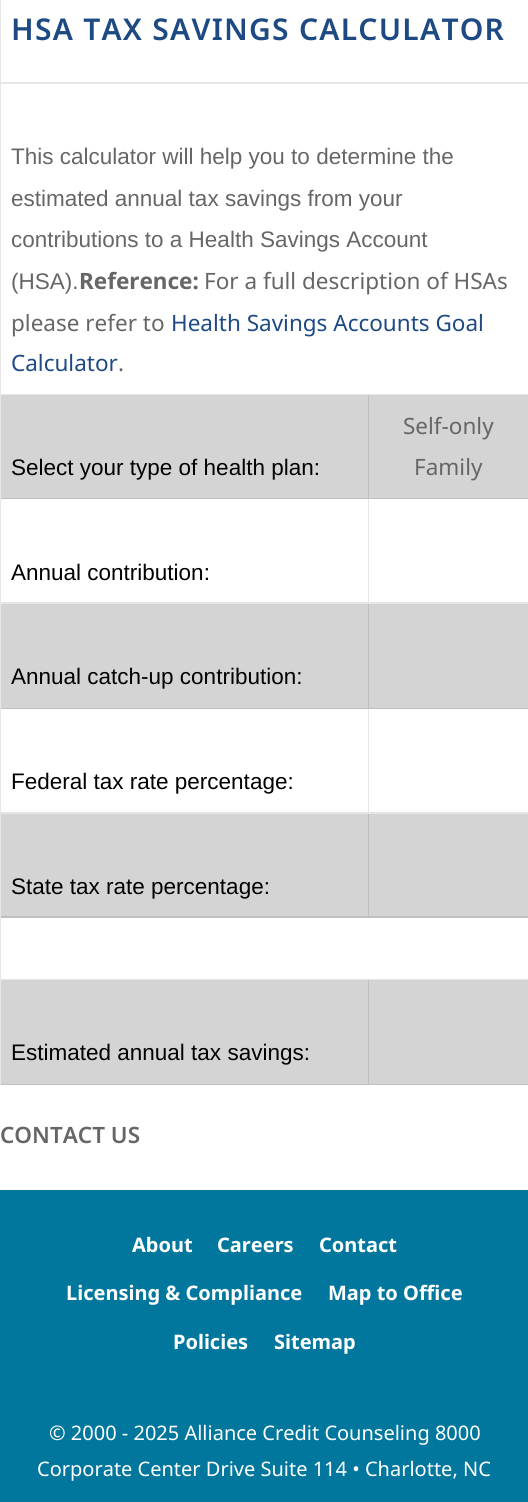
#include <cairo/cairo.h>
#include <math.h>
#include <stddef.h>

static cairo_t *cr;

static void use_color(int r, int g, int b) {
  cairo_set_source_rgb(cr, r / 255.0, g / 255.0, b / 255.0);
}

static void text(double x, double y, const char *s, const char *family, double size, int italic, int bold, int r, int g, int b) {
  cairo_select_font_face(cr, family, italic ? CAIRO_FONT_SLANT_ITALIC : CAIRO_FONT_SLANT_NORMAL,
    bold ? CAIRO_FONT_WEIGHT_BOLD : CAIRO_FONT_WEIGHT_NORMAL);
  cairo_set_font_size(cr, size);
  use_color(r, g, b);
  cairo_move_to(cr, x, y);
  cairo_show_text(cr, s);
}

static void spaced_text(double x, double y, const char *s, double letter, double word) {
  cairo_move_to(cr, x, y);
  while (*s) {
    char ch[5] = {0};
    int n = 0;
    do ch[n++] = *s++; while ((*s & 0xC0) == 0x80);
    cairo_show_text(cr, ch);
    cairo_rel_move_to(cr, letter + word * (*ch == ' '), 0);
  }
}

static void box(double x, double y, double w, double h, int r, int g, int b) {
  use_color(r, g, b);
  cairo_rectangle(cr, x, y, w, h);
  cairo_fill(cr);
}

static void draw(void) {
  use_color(255, 255, 255);
  cairo_paint(cr);
  use_color(230, 230, 230);
  cairo_new_path(cr);
  cairo_move_to(cr, 0, 1085);
  cairo_line_to(cr, 0, -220);
  cairo_line_to(cr, 1, -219);
  cairo_line_to(cr, 1, 1085);
  cairo_close_path(cr);
  cairo_fill(cr);
  cairo_new_path(cr);
  cairo_move_to(cr, 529, 84);
  cairo_line_to(cr, 1, 84);
  cairo_line_to(cr, 1, 82);
  cairo_line_to(cr, 528, 82);
  cairo_close_path(cr);
  cairo_fill(cr);
  cairo_new_path(cr);
  cairo_move_to(cr, 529, 395);
  cairo_line_to(cr, 1, 395);
  cairo_line_to(cr, 1, 394);
  cairo_line_to(cr, 528, 394);
  cairo_close_path(cr);
  cairo_fill(cr);
  box(1, 395, 527, 104, 212, 212, 212);
  use_color(191, 191, 191);
  cairo_new_path(cr);
  cairo_move_to(cr, 369, 395);
  cairo_line_to(cr, 369, 499);
  cairo_line_to(cr, 368, 498);
  cairo_line_to(cr, 368, 395);
  cairo_close_path(cr);
  cairo_fill(cr);
  cairo_set_source_rgba(cr, 0, 0, 0, 0.1);
  cairo_new_path(cr);
  cairo_move_to(cr, 369, 499);
  cairo_line_to(cr, 1, 499);
  cairo_line_to(cr, 1, 498);
  cairo_line_to(cr, 368, 498);
  cairo_close_path(cr);
  cairo_fill(cr);
  use_color(191, 191, 191);
  cairo_new_path(cr);
  cairo_move_to(cr, 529, 499);
  cairo_line_to(cr, 369, 499);
  cairo_line_to(cr, 369, 498);
  cairo_line_to(cr, 528, 498);
  cairo_close_path(cr);
  cairo_fill(cr);
  use_color(230, 230, 230);
  cairo_new_path(cr);
  cairo_move_to(cr, 369, 499);
  cairo_line_to(cr, 369, 604);
  cairo_line_to(cr, 368, 602);
  cairo_line_to(cr, 368, 499);
  cairo_close_path(cr);
  cairo_fill(cr);
  cairo_set_source_rgba(cr, 0, 0, 0, 0.1);
  cairo_new_path(cr);
  cairo_move_to(cr, 369, 604);
  cairo_line_to(cr, 1, 604);
  cairo_line_to(cr, 1, 602);
  cairo_line_to(cr, 368, 602);
  cairo_close_path(cr);
  cairo_fill(cr);
  use_color(230, 230, 230);
  cairo_new_path(cr);
  cairo_move_to(cr, 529, 604);
  cairo_line_to(cr, 369, 604);
  cairo_line_to(cr, 369, 602);
  cairo_line_to(cr, 528, 602);
  cairo_close_path(cr);
  cairo_fill(cr);
  box(1, 604, 527, 105, 212, 212, 212);
  use_color(191, 191, 191);
  cairo_new_path(cr);
  cairo_move_to(cr, 369, 604);
  cairo_line_to(cr, 369, 709);
  cairo_line_to(cr, 368, 708);
  cairo_line_to(cr, 368, 604);
  cairo_close_path(cr);
  cairo_fill(cr);
  cairo_set_source_rgba(cr, 0, 0, 0, 0.1);
  cairo_new_path(cr);
  cairo_move_to(cr, 369, 709);
  cairo_line_to(cr, 1, 709);
  cairo_line_to(cr, 1, 708);
  cairo_line_to(cr, 368, 708);
  cairo_close_path(cr);
  cairo_fill(cr);
  use_color(191, 191, 191);
  cairo_new_path(cr);
  cairo_move_to(cr, 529, 709);
  cairo_line_to(cr, 369, 709);
  cairo_line_to(cr, 369, 708);
  cairo_line_to(cr, 528, 708);
  cairo_close_path(cr);
  cairo_fill(cr);
  use_color(230, 230, 230);
  cairo_new_path(cr);
  cairo_move_to(cr, 369, 709);
  cairo_line_to(cr, 369, 814);
  cairo_line_to(cr, 368, 812);
  cairo_line_to(cr, 368, 709);
  cairo_close_path(cr);
  cairo_fill(cr);
  cairo_set_source_rgba(cr, 0, 0, 0, 0.1);
  cairo_new_path(cr);
  cairo_move_to(cr, 369, 814);
  cairo_line_to(cr, 1, 814);
  cairo_line_to(cr, 1, 812);
  cairo_line_to(cr, 368, 812);
  cairo_close_path(cr);
  cairo_fill(cr);
  use_color(230, 230, 230);
  cairo_new_path(cr);
  cairo_move_to(cr, 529, 814);
  cairo_line_to(cr, 369, 814);
  cairo_line_to(cr, 369, 812);
  cairo_line_to(cr, 528, 812);
  cairo_close_path(cr);
  cairo_fill(cr);
  box(1, 814, 527, 104, 212, 212, 212);
  use_color(191, 191, 191);
  cairo_new_path(cr);
  cairo_move_to(cr, 369, 814);
  cairo_line_to(cr, 369, 918);
  cairo_line_to(cr, 368, 916);
  cairo_line_to(cr, 368, 814);
  cairo_close_path(cr);
  cairo_fill(cr);
  cairo_set_source_rgba(cr, 0, 0, 0, 0.1);
  cairo_new_path(cr);
  cairo_move_to(cr, 369, 918);
  cairo_line_to(cr, 1, 918);
  cairo_line_to(cr, 1, 916);
  cairo_line_to(cr, 368, 916);
  cairo_close_path(cr);
  cairo_fill(cr);
  use_color(191, 191, 191);
  cairo_new_path(cr);
  cairo_move_to(cr, 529, 918);
  cairo_line_to(cr, 369, 918);
  cairo_line_to(cr, 369, 916);
  cairo_line_to(cr, 528, 916);
  cairo_close_path(cr);
  cairo_fill(cr);
  use_color(230, 230, 230);
  cairo_new_path(cr);
  cairo_move_to(cr, 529, 980);
  cairo_line_to(cr, 1, 980);
  cairo_line_to(cr, 1, 979);
  cairo_line_to(cr, 528, 979);
  cairo_close_path(cr);
  cairo_fill(cr);
  box(1, 980, 527, 105, 212, 212, 212);
  use_color(191, 191, 191);
  cairo_new_path(cr);
  cairo_move_to(cr, 369, 980);
  cairo_line_to(cr, 369, 1085);
  cairo_line_to(cr, 368, 1084);
  cairo_line_to(cr, 368, 980);
  cairo_close_path(cr);
  cairo_fill(cr);
  cairo_set_source_rgba(cr, 0, 0, 0, 0.1);
  cairo_new_path(cr);
  cairo_move_to(cr, 369, 1085);
  cairo_line_to(cr, 1, 1085);
  cairo_line_to(cr, 1, 1084);
  cairo_line_to(cr, 368, 1084);
  cairo_close_path(cr);
  cairo_fill(cr);
  use_color(191, 191, 191);
  cairo_new_path(cr);
  cairo_move_to(cr, 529, 1085);
  cairo_line_to(cr, 369, 1085);
  cairo_line_to(cr, 369, 1084);
  cairo_line_to(cr, 528, 1084);
  cairo_close_path(cr);
  cairo_fill(cr);
  box(0, 1190, 528, 312, 2, 119, 158);
  cairo_select_font_face(cr, "Noto Sans SemiBold", CAIRO_FONT_SLANT_NORMAL, CAIRO_FONT_WEIGHT_NORMAL);
  cairo_set_font_size(cr, 30);
  use_color(30, 74, 132);
  spaced_text(11, 40, "HSA TAX SAVINGS CALCULATOR", 1.25, 0);
  text(11, 164, "This calculator will help you to determine the", "Liberation Sans", 22.5, 0, 0, 102, 102, 102);
  text(11, 206, "estimated annual tax savings from your", "Liberation Sans", 22.5, 0, 0, 102, 102, 102);
  text(11, 247, "contributions to a Health Savings Account", "Liberation Sans", 22.5, 0, 0, 102, 102, 102);
  text(11, 289, "(HSA).", "Liberation Sans", 22.5, 0, 0, 102, 102, 102);
  text(79, 289, "Reference:", "Noto Sans", 22.5, 0, 1, 102, 102, 102);
  text(204, 289, "For a full description of HSAs", "Noto Sans", 22.5, 0, 0, 102, 102, 102);
  text(11, 331, "please refer to", "Noto Sans", 22.5, 0, 0, 102, 102, 102);
  text(171, 331, "Health Savings Accounts Goal", "Noto Sans", 22.5, 0, 0, 30, 74, 132);
  text(11, 371, "Calculator", "Noto Sans", 22.5, 0, 0, 30, 74, 132);
  text(118, 371, ".", "Noto Sans", 22.5, 0, 0, 102, 102, 102);
  text(11, 475, "Select your type of health plan:", "Liberation Sans", 22.5, 0, 0, 0, 0, 0);
  text(403, 434, "Self-only", "Noto Sans", 22.5, 0, 0, 102, 102, 102);
  text(414, 475, "Family", "Noto Sans", 22.5, 0, 0, 102, 102, 102);
  text(11, 580, "Annual contribution:", "Liberation Sans", 22.5, 0, 0, 0, 0, 0);
  text(11, 684, "Annual catch-up contribution:", "Liberation Sans", 22.5, 0, 0, 0, 0, 0);
  text(11, 789, "Federal tax rate percentage:", "Liberation Sans", 22.5, 0, 0, 0, 0, 0);
  text(11, 894, "State tax rate percentage:", "Liberation Sans", 22.5, 0, 0, 0, 0, 0);
  text(11, 1060, "Estimated annual tax savings:", "Liberation Sans", 22.5, 0, 0, 0, 0, 0);
  text(0, 1143, "CONTACT US", "Noto Sans SemiBold", 22.5, 0, 0, 102, 102, 102);
  text(132, 1252, "About", "Noto Sans", 20, 0, 1, 255, 255, 255);
  text(217, 1252, "Careers", "Noto Sans", 20, 0, 1, 255, 255, 255);
  text(319, 1252, "Contact", "Noto Sans", 20, 0, 1, 255, 255, 255);
  text(66, 1300, "Licensing & Compliance", "Noto Sans", 20, 0, 1, 255, 255, 255);
  text(328, 1300, "Map to Office", "Noto Sans", 20, 0, 1, 255, 255, 255);
  text(173, 1349, "Policies", "Noto Sans", 20, 0, 1, 255, 255, 255);
  text(274, 1349, "Sitemap", "Noto Sans", 20, 0, 1, 255, 255, 255);
  text(49, 1440, "© 2000 - 2025 Alliance Credit Counseling 8000", "Noto Sans", 20, 0, 0, 255, 255, 255);
  text(37, 1476, "Corporate Center Drive Suite 114 • Charlotte, NC", "Noto Sans", 20, 0, 0, 255, 255, 255);
}

int main(void) {
  cairo_surface_t *surface = cairo_image_surface_create(CAIRO_FORMAT_RGB24, 528, 1502);
  cr = cairo_create(surface);
  cairo_font_options_t *options = cairo_font_options_create();
  cairo_font_options_set_hint_metrics(options, CAIRO_HINT_METRICS_OFF);
  cairo_font_options_set_hint_style(options, CAIRO_HINT_STYLE_NONE);
  cairo_set_font_options(cr, options);
  cairo_set_miter_limit(cr, 4);
  draw();
  cairo_surface_write_to_png(surface, "out.png");
  cairo_font_options_destroy(options);
  cairo_destroy(cr);
  cairo_surface_destroy(surface);
  return 0;
}
